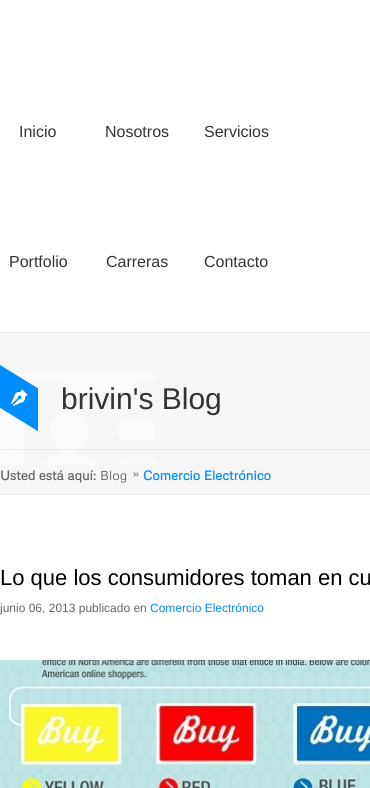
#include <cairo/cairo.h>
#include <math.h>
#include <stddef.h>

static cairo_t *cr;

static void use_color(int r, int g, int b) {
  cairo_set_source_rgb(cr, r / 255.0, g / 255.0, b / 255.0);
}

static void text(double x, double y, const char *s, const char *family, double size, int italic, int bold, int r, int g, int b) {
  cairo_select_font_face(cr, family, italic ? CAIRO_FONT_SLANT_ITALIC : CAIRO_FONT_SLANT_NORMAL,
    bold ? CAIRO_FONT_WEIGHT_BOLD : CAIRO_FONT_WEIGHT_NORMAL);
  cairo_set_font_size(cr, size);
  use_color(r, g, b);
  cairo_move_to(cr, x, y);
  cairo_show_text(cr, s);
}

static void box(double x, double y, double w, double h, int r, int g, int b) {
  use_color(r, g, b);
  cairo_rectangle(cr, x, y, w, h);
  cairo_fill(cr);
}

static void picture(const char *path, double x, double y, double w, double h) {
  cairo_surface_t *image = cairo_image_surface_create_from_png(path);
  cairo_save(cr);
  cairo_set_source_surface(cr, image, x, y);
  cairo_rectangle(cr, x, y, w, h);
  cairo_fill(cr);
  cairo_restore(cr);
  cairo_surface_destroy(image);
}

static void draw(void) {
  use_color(255, 255, 255);
  cairo_paint(cr);
  box(0, 333, 370, 161, 247, 247, 247);
  box(0, 332, 370, 1, 234, 234, 234);
  box(0, 494, 370, 1, 234, 234, 234);
  picture("img_01.png", 1, 373, 154, 92);
  box(0, 449, 370, 1, 234, 234, 234);
  picture("img_02.png", 0, 365, 38, 66);
  picture("img_03.png", 133, 472, 6, 5);
  picture("img_04.png", 0, 660, 370, 128);
  text(19, 137, "Inicio", "Liberation Sans", 16, 0, 0, 51, 51, 51);
  text(105, 137, "Nosotros", "Liberation Sans", 16, 0, 0, 51, 51, 51);
  text(204, 137, "Servicios", "Liberation Sans", 16, 0, 0, 51, 51, 51);
  text(9, 267, "Portfolio", "Liberation Sans", 16, 0, 0, 51, 51, 51);
  text(106, 267, "Carreras", "Liberation Sans", 16, 0, 0, 51, 51, 51);
  text(204, 267, "Contacto", "Liberation Sans", 16, 0, 0, 51, 51, 51);
  text(61, 409, "brivin's Blog", "Liberation Sans", 30, 0, 0, 51, 51, 51);
  text(0, 480, "Usted está aquí:", "Metrophobic", 13, 0, 1, 102, 102, 102);
  text(100, 480, "Blog", "Metrophobic", 13, 0, 0, 102, 102, 102);
  text(143, 480, "Comercio Electrónico", "Metrophobic", 13, 0, 1, 0, 140, 255);
  text(0, 585, "Lo que los consumidores toman en cu", "Liberation Sans", 22, 0, 0, 0, 0, 0);
  text(0, 612, "junio 06, 2013 publicado en", "Liberation Sans", 12, 0, 0, 102, 102, 102);
  text(150, 612, "Comercio Electrónico", "Liberation Sans", 12, 0, 0, 0, 140, 255);
}

int main(void) {
  cairo_surface_t *surface = cairo_image_surface_create(CAIRO_FORMAT_RGB24, 370, 788);
  cr = cairo_create(surface);
  cairo_font_options_t *options = cairo_font_options_create();
  cairo_font_options_set_hint_metrics(options, CAIRO_HINT_METRICS_OFF);
  cairo_font_options_set_hint_style(options, CAIRO_HINT_STYLE_NONE);
  cairo_set_font_options(cr, options);
  cairo_set_miter_limit(cr, 4);
  draw();
  cairo_surface_write_to_png(surface, "out.png");
  cairo_font_options_destroy(options);
  cairo_destroy(cr);
  cairo_surface_destroy(surface);
  return 0;
}
